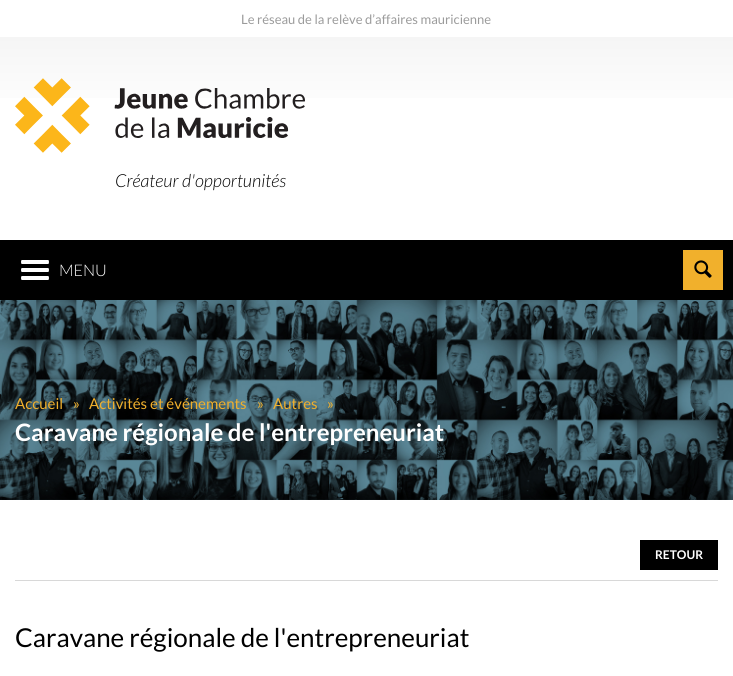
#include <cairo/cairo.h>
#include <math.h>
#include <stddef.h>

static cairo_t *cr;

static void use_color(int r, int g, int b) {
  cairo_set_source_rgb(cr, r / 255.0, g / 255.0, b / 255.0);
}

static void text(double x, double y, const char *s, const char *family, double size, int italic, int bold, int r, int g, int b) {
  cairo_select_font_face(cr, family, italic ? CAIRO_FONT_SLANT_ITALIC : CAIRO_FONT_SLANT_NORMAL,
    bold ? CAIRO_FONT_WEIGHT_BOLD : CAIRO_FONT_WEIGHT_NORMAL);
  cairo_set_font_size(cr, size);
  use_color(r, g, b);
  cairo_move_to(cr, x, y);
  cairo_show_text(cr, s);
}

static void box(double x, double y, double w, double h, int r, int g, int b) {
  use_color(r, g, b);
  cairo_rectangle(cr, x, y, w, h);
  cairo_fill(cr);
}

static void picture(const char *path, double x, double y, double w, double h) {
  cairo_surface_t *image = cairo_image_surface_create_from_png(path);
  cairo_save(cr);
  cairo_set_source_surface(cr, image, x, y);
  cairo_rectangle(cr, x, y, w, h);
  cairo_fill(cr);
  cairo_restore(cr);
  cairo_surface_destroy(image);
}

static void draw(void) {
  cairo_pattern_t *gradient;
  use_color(255, 255, 255);
  cairo_paint(cr);
  gradient = cairo_pattern_create_linear(367, 240, 367, 37);
  cairo_pattern_add_color_stop_rgba(gradient, 0.6, 1, 1, 1, 1);
  cairo_pattern_add_color_stop_rgba(gradient, 1, 0.961, 0.961, 0.961, 1);
  cairo_set_source(cr, gradient);
  cairo_pattern_destroy(gradient);
  cairo_rectangle(cr, 0, 37, 733, 61);
  cairo_fill(cr);
  picture("img_01.png", 15, 78, 290, 75);
  box(0, 240, 733, 60, 0, 0, 0);
  picture("img_02.png", 21, 260, 28, 20);
  box(683, 250, 40, 40, 241, 176, 44);
  picture("img_03.png", 694, 260, 18, 18);
  picture("img_04.png", 0, 300, 733, 200);
  box(15, 580, 703, 1, 216, 216, 216);
  box(640, 540, 78, 30, 0, 0, 0);
  text(241, 24, "Le réseau de la relève d’affaires mauricienne", "Lato", 13, 0, 0, 155, 155, 155);
  text(115, 187, "Créateur d'opportunités", "Lato Light", 18, 1, 0, 0, 0, 0);
  text(59, 276, "MENU", "Lato Light", 16, 0, 0, 255, 255, 255);
  text(15, 409, "Accueil", "Lato", 15, 0, 0, 241, 176, 44);
  text(73, 409, "»", "Lato", 15, 0, 0, 241, 176, 44);
  text(89, 409, "Activités et événements", "Lato", 15, 0, 0, 241, 176, 44);
  text(257, 409, "»", "Lato", 15, 0, 0, 241, 176, 44);
  text(273, 409, "Autres", "Lato", 15, 0, 0, 241, 176, 44);
  text(327, 409, "»", "Lato", 15, 0, 0, 241, 176, 44);
  text(15, 441, "Caravane régionale de l'entrepreneuriat", "Lato", 24, 0, 1, 255, 255, 255);
  text(655, 559, "RETOUR", "Lato", 12, 0, 1, 255, 255, 255);
  text(15, 647, "Caravane régionale de l'entrepreneuriat", "Lato", 26, 0, 0, 0, 0, 0);
}

int main(void) {
  cairo_surface_t *surface = cairo_image_surface_create(CAIRO_FORMAT_RGB24, 733, 676);
  cr = cairo_create(surface);
  cairo_font_options_t *options = cairo_font_options_create();
  cairo_font_options_set_hint_metrics(options, CAIRO_HINT_METRICS_OFF);
  cairo_font_options_set_hint_style(options, CAIRO_HINT_STYLE_NONE);
  cairo_set_font_options(cr, options);
  cairo_set_miter_limit(cr, 4);
  draw();
  cairo_surface_write_to_png(surface, "out.png");
  cairo_font_options_destroy(options);
  cairo_destroy(cr);
  cairo_surface_destroy(surface);
  return 0;
}
